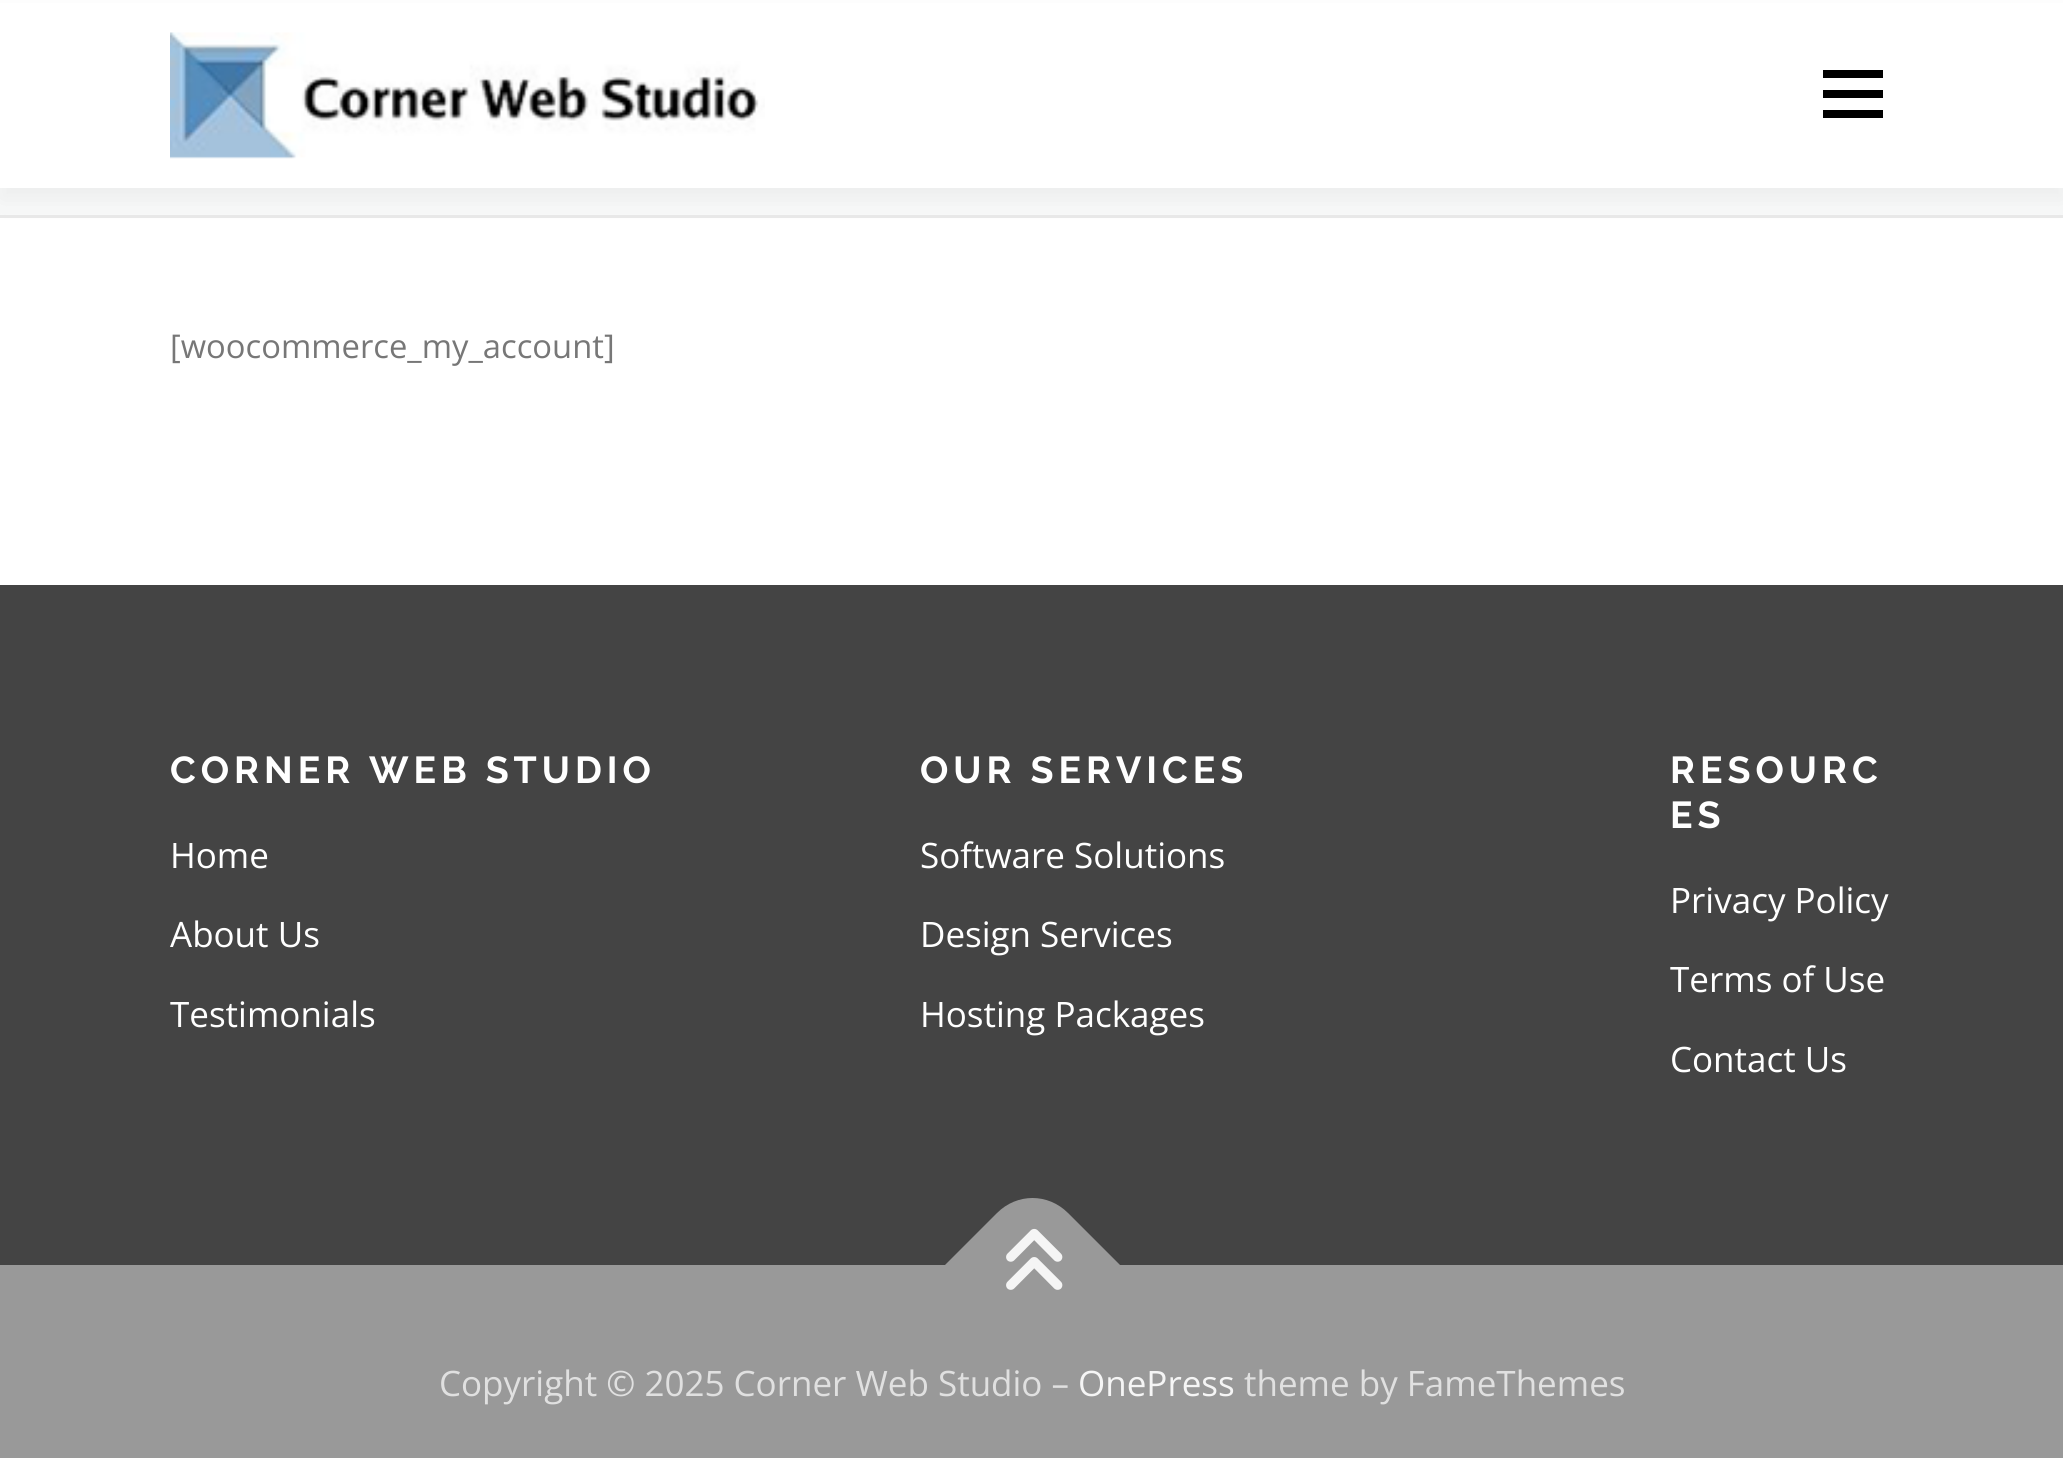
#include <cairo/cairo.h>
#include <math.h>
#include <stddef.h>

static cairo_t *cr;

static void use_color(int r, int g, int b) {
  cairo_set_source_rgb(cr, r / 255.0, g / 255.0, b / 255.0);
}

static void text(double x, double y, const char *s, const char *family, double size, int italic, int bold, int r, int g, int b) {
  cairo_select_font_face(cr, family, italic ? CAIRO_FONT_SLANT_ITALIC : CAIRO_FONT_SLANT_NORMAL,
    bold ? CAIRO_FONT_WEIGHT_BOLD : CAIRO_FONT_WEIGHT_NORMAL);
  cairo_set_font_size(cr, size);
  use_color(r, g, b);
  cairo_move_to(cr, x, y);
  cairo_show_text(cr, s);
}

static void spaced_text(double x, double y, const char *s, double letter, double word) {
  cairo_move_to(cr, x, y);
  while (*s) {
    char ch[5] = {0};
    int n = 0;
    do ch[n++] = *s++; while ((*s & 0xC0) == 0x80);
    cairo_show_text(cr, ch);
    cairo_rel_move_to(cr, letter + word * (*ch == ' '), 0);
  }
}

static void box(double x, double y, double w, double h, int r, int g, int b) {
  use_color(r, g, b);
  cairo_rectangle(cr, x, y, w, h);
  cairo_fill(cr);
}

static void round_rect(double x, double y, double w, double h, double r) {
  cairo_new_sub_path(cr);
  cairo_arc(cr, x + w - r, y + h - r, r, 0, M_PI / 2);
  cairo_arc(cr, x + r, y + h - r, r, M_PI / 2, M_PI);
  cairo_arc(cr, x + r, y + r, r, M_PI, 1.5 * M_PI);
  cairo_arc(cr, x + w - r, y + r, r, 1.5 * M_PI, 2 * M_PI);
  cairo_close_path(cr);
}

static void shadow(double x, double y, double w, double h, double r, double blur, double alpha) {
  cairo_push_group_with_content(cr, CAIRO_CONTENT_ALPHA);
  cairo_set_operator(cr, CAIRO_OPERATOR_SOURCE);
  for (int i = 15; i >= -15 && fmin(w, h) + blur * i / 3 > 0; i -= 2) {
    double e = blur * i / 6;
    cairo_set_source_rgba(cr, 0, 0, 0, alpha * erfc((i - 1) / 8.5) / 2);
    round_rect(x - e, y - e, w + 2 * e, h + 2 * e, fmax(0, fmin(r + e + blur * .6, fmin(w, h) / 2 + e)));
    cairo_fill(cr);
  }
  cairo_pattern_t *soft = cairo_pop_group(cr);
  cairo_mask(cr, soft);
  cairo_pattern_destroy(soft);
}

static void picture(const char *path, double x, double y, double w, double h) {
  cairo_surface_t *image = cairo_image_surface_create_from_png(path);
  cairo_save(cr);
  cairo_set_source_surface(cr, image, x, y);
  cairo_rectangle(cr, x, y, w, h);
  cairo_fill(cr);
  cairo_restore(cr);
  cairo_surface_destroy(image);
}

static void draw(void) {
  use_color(255, 255, 255);
  cairo_paint(cr);
  box(0, 188, 2063, 27, 248, 249, 249);
  box(0, 215, 2063, 3, 233, 233, 233);
  use_color(50, 50, 50);
  shadow(0, 13, 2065, 187, 0, 12.5, 0.06);
  box(0, 3, 2063, 185, 255, 255, 255);
  picture("img_01.png", 170, 32, 595, 127);
  box(1823, 90, 60, 8, 0, 0, 0);
  box(1823, 70, 60, 8, 0, 0, 0);
  box(1823, 110, 60, 8, 0, 0, 0);
  box(0, 585, 2063, 680, 68, 68, 68);
  box(0, 1265, 2063, 193, 153, 153, 153);
  cairo_new_path(cr);
  cairo_move_to(cr, 944, 1266);
  cairo_line_to(cr, 997, 1213);
  cairo_curve_to(cr, 1017, 1193, 1048, 1193, 1068, 1213);
  cairo_line_to(cr, 1121, 1266);
  cairo_line_to(cr, 1032, 1354);
  cairo_close_path(cr);
  cairo_fill(cr);
  picture("img_02.png", 1006, 1228, 57, 62);
  text(170, 358, "[woocommerce_my_account]", "Open Sans", 32.75, 0, 0, 119, 119, 119);
  cairo_select_font_face(cr, "Raleway", CAIRO_FONT_SLANT_NORMAL, CAIRO_FONT_WEIGHT_BOLD);
  cairo_set_font_size(cr, 37.5);
  use_color(255, 255, 255);
  spaced_text(170, 783, "CORNER WEB STUDIO", 5, 0);
  text(170, 868, "Home", "Open Sans", 35, 0, 0, 255, 255, 255);
  text(170, 947, "About Us", "Open Sans", 35, 0, 0, 255, 255, 255);
  text(170, 1027, "Testimonials", "Open Sans", 35, 0, 0, 255, 255, 255);
  cairo_select_font_face(cr, "Raleway", CAIRO_FONT_SLANT_NORMAL, CAIRO_FONT_WEIGHT_BOLD);
  cairo_set_font_size(cr, 37.5);
  spaced_text(920, 783, "OUR SERVICES", 5, 0);
  text(920, 868, "Software Solutions", "Open Sans", 35, 0, 0, 255, 255, 255);
  text(920, 947, "Design Services", "Open Sans", 35, 0, 0, 255, 255, 255);
  text(920, 1027, "Hosting Packages", "Open Sans", 35, 0, 0, 255, 255, 255);
  cairo_select_font_face(cr, "Raleway", CAIRO_FONT_SLANT_NORMAL, CAIRO_FONT_WEIGHT_BOLD);
  cairo_set_font_size(cr, 37.5);
  spaced_text(1670, 783, "RESOURC", 5, 0);
  spaced_text(1670, 828, "ES", 5, 0);
  text(1670, 913, "Privacy Policy", "Open Sans", 35, 0, 0, 255, 255, 255);
  text(1670, 992, "Terms of Use", "Open Sans", 35, 0, 0, 255, 255, 255);
  text(1670, 1072, "Contact Us", "Open Sans", 35, 0, 0, 255, 255, 255);
  text(439, 1396, "Copyright © 2025 Corner Web Studio –", "Open Sans", 35, 0, 0, 224, 224, 224);
  text(1078, 1396, "OnePress", "Open Sans", 35, 0, 0, 245, 245, 245);
  text(1244, 1396, "theme by FameThemes", "Open Sans", 35, 0, 0, 224, 224, 224);
}

int main(void) {
  cairo_surface_t *surface = cairo_image_surface_create(CAIRO_FORMAT_RGB24, 2063, 1458);
  cr = cairo_create(surface);
  cairo_font_options_t *options = cairo_font_options_create();
  cairo_font_options_set_hint_metrics(options, CAIRO_HINT_METRICS_OFF);
  cairo_font_options_set_hint_style(options, CAIRO_HINT_STYLE_NONE);
  cairo_set_font_options(cr, options);
  cairo_set_miter_limit(cr, 4);
  draw();
  cairo_surface_write_to_png(surface, "out.png");
  cairo_font_options_destroy(options);
  cairo_destroy(cr);
  cairo_surface_destroy(surface);
  return 0;
}
